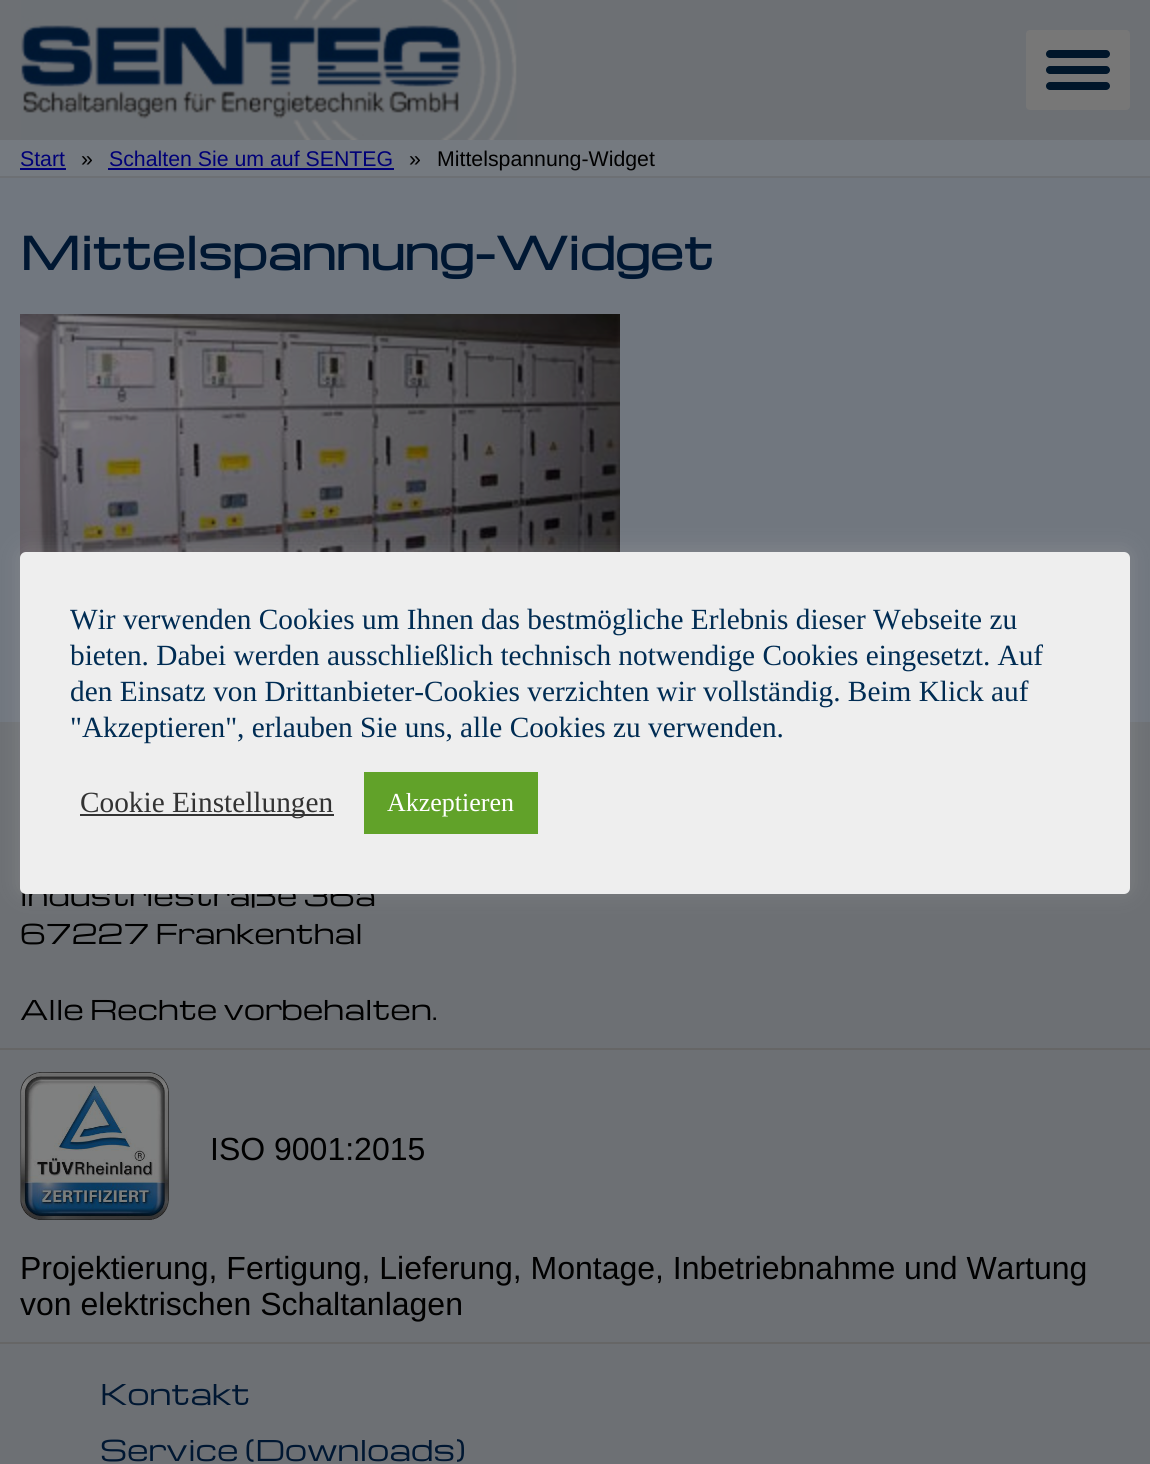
#include <cairo/cairo.h>
#include <math.h>
#include <stddef.h>

static cairo_t *cr;

static void use_color(int r, int g, int b) {
  cairo_set_source_rgb(cr, r / 255.0, g / 255.0, b / 255.0);
}

static void text(double x, double y, const char *s, const char *family, double size, int italic, int bold, int r, int g, int b) {
  cairo_select_font_face(cr, family, italic ? CAIRO_FONT_SLANT_ITALIC : CAIRO_FONT_SLANT_NORMAL,
    bold ? CAIRO_FONT_WEIGHT_BOLD : CAIRO_FONT_WEIGHT_NORMAL);
  cairo_set_font_size(cr, size);
  use_color(r, g, b);
  cairo_move_to(cr, x, y);
  cairo_show_text(cr, s);
}

static void box(double x, double y, double w, double h, int r, int g, int b) {
  use_color(r, g, b);
  cairo_rectangle(cr, x, y, w, h);
  cairo_fill(cr);
}

static void round_rect(double x, double y, double w, double h, double r) {
  cairo_new_sub_path(cr);
  cairo_arc(cr, x + w - r, y + h - r, r, 0, M_PI / 2);
  cairo_arc(cr, x + r, y + h - r, r, M_PI / 2, M_PI);
  cairo_arc(cr, x + r, y + r, r, M_PI, 1.5 * M_PI);
  cairo_arc(cr, x + w - r, y + r, r, 1.5 * M_PI, 2 * M_PI);
  cairo_close_path(cr);
}

static void shadow(double x, double y, double w, double h, double r, double blur, double alpha) {
  cairo_push_group_with_content(cr, CAIRO_CONTENT_ALPHA);
  cairo_set_operator(cr, CAIRO_OPERATOR_SOURCE);
  for (int i = 15; i >= -15 && fmin(w, h) + blur * i / 3 > 0; i -= 2) {
    double e = blur * i / 6;
    cairo_set_source_rgba(cr, 0, 0, 0, alpha * erfc((i - 1) / 8.5) / 2);
    round_rect(x - e, y - e, w + 2 * e, h + 2 * e, fmax(0, fmin(r + e + blur * .6, fmin(w, h) / 2 + e)));
    cairo_fill(cr);
  }
  cairo_pattern_t *soft = cairo_pop_group(cr);
  cairo_mask(cr, soft);
  cairo_pattern_destroy(soft);
}

static void picture(const char *path, double x, double y, double w, double h) {
  cairo_surface_t *image = cairo_image_surface_create_from_png(path);
  cairo_save(cr);
  cairo_set_source_surface(cr, image, x, y);
  cairo_rectangle(cr, x, y, w, h);
  cairo_fill(cr);
  cairo_restore(cr);
  cairo_surface_destroy(image);
}

static void draw(void) {
  use_color(113, 119, 127);
  cairo_paint(cr);
  box(0, 0, 1150, 140, 109, 112, 116);
  picture("img_01.png", 21, 0, 496, 140);
  use_color(119, 119, 119);
  round_rect(1026, 30, 104, 80, 4);
  cairo_fill(cr);
  use_color(0, 22, 42);
  round_rect(1046, 50, 64, 8, 4);
  cairo_fill(cr);
  round_rect(1046, 66, 64, 8, 4);
  cairo_fill(cr);
  round_rect(1046, 82, 64, 8, 4);
  cairo_fill(cr);
  box(0, 140, 1150, 36, 117, 122, 128);
  box(0, 176, 1150, 2, 109, 112, 116);
  box(20, 168, 46, 2, 0, 0, 119);
  box(108, 168, 286, 2, 0, 0, 119);
  picture("img_02.png", 20, 314, 600, 244);
  box(0, 722, 1150, 742, 109, 112, 116);
  use_color(172, 171, 171);
  shadow(20, 550, 1110, 342, 6, 10, 0.3);
  box(0, 1048, 1150, 2, 102, 102, 102);
  box(0, 1342, 1150, 2, 102, 102, 102);
  picture("img_03.png", 20, 1072, 149, 148);
  text(20, 166, "Start", "Liberation Sans", 21.3, 0, 0, 0, 0, 119);
  text(81, 166, "»", "Liberation Sans", 21.3, 0, 0, 0, 0, 0);
  text(109, 166, "Schalten Sie um auf SENTEG", "Liberation Sans", 21.3, 0, 0, 0, 0, 119);
  text(409, 166, "»", "Liberation Sans", 21.3, 0, 0, 0, 0, 0);
  text(437, 166, "Mittelspannung-Widget", "Liberation Sans", 21.3, 0, 0, 0, 0, 0);
  text(20, 270, "Mittelspannung-Widget", "Michroma", 44, 0, 1, 0, 23, 50);
  text(20, 906, "Industriestraße 36a", "Michroma", 26.7, 0, 0, 0, 0, 0);
  use_color(238, 238, 238);
  round_rect(20, 552, 1110, 342, 6);
  cairo_fill(cr);
  box(364, 772, 174, 62, 97, 162, 41);
  text(387, 811, "Akzeptieren", "Liberation Serif", 26, 0, 0, 255, 255, 255);
  box(80, 814, 254, 2, 51, 51, 51);
  text(80, 812, "Cookie Einstellungen", "Liberation Serif", 29.3, 0, 0, 51, 51, 51);
  text(70, 737, "\"Akzeptieren\", erlauben Sie uns, alle Cookies zu verwenden.", "Liberation Serif", 29.3, 0, 0, 0, 44, 83);
  text(70, 701, "den Einsatz von Drittanbieter-Cookies verzichten wir vollständig. Beim Klick auf", "Liberation Serif", 29.3, 0, 0, 0, 44, 83);
  text(70, 665, "bieten. Dabei werden ausschließlich technisch notwendige Cookies eingesetzt. Auf", "Liberation Serif", 29.3, 0, 0, 0, 44, 83);
  text(70, 629, "Wir verwenden Cookies um Ihnen das bestmögliche Erlebnis dieser Webseite zu", "Liberation Serif", 29.3, 0, 0, 0, 44, 83);
  text(20, 944, "67227 Frankenthal", "Michroma", 26.7, 0, 0, 0, 0, 0);
  text(20, 1020, "Alle Rechte vorbehalten.", "Michroma", 26.7, 0, 0, 0, 0, 0);
  text(210, 1160, "ISO 9001:2015", "Liberation Sans", 32, 0, 0, 0, 0, 0);
  text(20, 1279, "Projektierung, Fertigung, Lieferung, Montage, Inbetriebnahme und Wartung", "Liberation Sans", 32, 0, 0, 0, 0, 0);
  text(20, 1315, "von elektrischen Schaltanlagen", "Liberation Sans", 32, 0, 0, 0, 0, 0);
  text(100, 1405, "Kontakt", "Michroma", 28, 0, 0, 0, 23, 50);
  text(100, 1461, "Service (Downloads)", "Michroma", 28, 0, 0, 0, 23, 50);
}

int main(void) {
  cairo_surface_t *surface = cairo_image_surface_create(CAIRO_FORMAT_RGB24, 1150, 1464);
  cr = cairo_create(surface);
  cairo_font_options_t *options = cairo_font_options_create();
  cairo_font_options_set_hint_metrics(options, CAIRO_HINT_METRICS_OFF);
  cairo_font_options_set_hint_style(options, CAIRO_HINT_STYLE_NONE);
  cairo_set_font_options(cr, options);
  cairo_set_miter_limit(cr, 4);
  draw();
  cairo_surface_write_to_png(surface, "out.png");
  cairo_font_options_destroy(options);
  cairo_destroy(cr);
  cairo_surface_destroy(surface);
  return 0;
}
